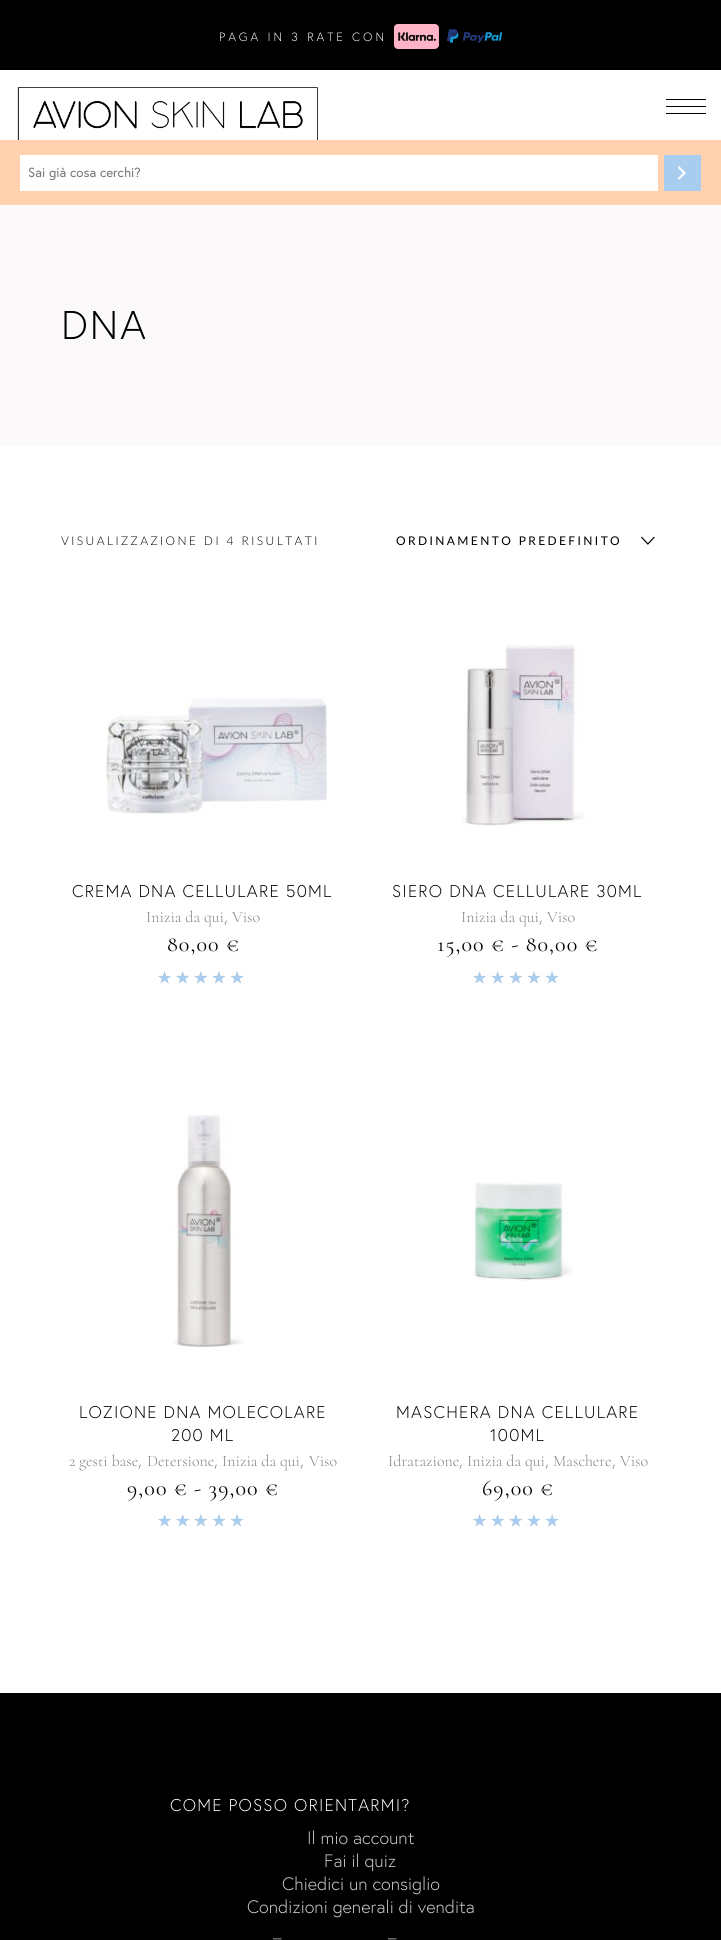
#include <cairo/cairo.h>
#include <math.h>
#include <stddef.h>

static cairo_t *cr;

static void use_color(int r, int g, int b) {
  cairo_set_source_rgb(cr, r / 255.0, g / 255.0, b / 255.0);
}

static void text(double x, double y, const char *s, const char *family, double size, int italic, int bold, int r, int g, int b) {
  cairo_select_font_face(cr, family, italic ? CAIRO_FONT_SLANT_ITALIC : CAIRO_FONT_SLANT_NORMAL,
    bold ? CAIRO_FONT_WEIGHT_BOLD : CAIRO_FONT_WEIGHT_NORMAL);
  cairo_set_font_size(cr, size);
  use_color(r, g, b);
  cairo_move_to(cr, x, y);
  cairo_show_text(cr, s);
}

static void spaced_text(double x, double y, const char *s, double letter, double word) {
  cairo_move_to(cr, x, y);
  while (*s) {
    char ch[5] = {0};
    int n = 0;
    do ch[n++] = *s++; while ((*s & 0xC0) == 0x80);
    cairo_show_text(cr, ch);
    cairo_rel_move_to(cr, letter + word * (*ch == ' '), 0);
  }
}

static void box(double x, double y, double w, double h, int r, int g, int b) {
  use_color(r, g, b);
  cairo_rectangle(cr, x, y, w, h);
  cairo_fill(cr);
}

static void picture(const char *path, double x, double y, double w, double h) {
  cairo_surface_t *image = cairo_image_surface_create_from_png(path);
  cairo_save(cr);
  cairo_set_source_surface(cr, image, x, y);
  cairo_rectangle(cr, x, y, w, h);
  cairo_fill(cr);
  cairo_restore(cr);
  cairo_surface_destroy(image);
}

static void draw(void) {
  use_color(255, 255, 255);
  cairo_paint(cr);
  box(0, 0, 721, 70, 0, 0, 0);
  picture("img_01.png", 394, 24, 108, 25);
  picture("img_02.png", 17, 87, 301, 53);
  box(666, 99, 40, 1, 0, 0, 0);
  box(666, 106, 40, 1, 0, 0, 0);
  box(666, 113, 40, 1, 0, 0, 0);
  box(0, 140, 721, 65, 255, 209, 175);
  box(20, 155, 638, 36, 255, 255, 255);
  box(664, 155, 37, 36, 168, 205, 239);
  picture("img_03.png", 678, 166, 8, 14);
  box(0, 205, 721, 240, 251, 249, 249);
  picture("img_04.png", 641, 536, 14, 9);
  picture("img_05.png", 105, 698, 222, 116);
  picture("img_06.png", 158, 971, 86, 13);
  picture("img_07.png", 158, 971, 86, 13);
  picture("img_08.png", 462, 645, 124, 181);
  picture("img_06.png", 473, 971, 86, 13);
  picture("img_07.png", 473, 971, 86, 13);
  picture("img_09.png", 171, 1114, 73, 234);
  picture("img_06.png", 158, 1514, 86, 13);
  picture("img_07.png", 158, 1514, 86, 13);
  picture("img_10.png", 473, 1182, 101, 99);
  picture("img_06.png", 473, 1514, 86, 13);
  picture("img_07.png", 473, 1514, 86, 13);
  box(0, 1693, 721, 247, 0, 0, 0);
  cairo_select_font_face(cr, "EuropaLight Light", CAIRO_FONT_SLANT_NORMAL, CAIRO_FONT_WEIGHT_NORMAL);
  cairo_set_font_size(cr, 12);
  use_color(255, 255, 255);
  spaced_text(219, 41, "PAGA IN 3 RATE CON", 3, 0);
  text(28, 177, "Sai già cosa cerchi?", "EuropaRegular", 13.25, 0, 0, 117, 117, 117);
  cairo_select_font_face(cr, "EuropaLight Light", CAIRO_FONT_SLANT_NORMAL, CAIRO_FONT_WEIGHT_NORMAL);
  cairo_set_font_size(cr, 40);
  use_color(0, 0, 0);
  spaced_text(61, 339, "DNA", 2, 0);
  cairo_select_font_face(cr, "Lato Light", CAIRO_FONT_SLANT_NORMAL, CAIRO_FONT_WEIGHT_NORMAL);
  cairo_set_font_size(cr, 12);
  spaced_text(61, 545, "VISUALIZZAZIONE DI 4 RISULTATI", 2.4, 0);
  cairo_select_font_face(cr, "Lato", CAIRO_FONT_SLANT_NORMAL, CAIRO_FONT_WEIGHT_NORMAL);
  spaced_text(396, 545, "ORDINAMENTO PREDEFINITO", 2.4, 0);
  cairo_select_font_face(cr, "EuropaLight Light", CAIRO_FONT_SLANT_NORMAL, CAIRO_FONT_WEIGHT_NORMAL);
  cairo_set_font_size(cr, 17);
  spaced_text(72, 897, "CREMA DNA CELLULARE 50ML", 1.25, 0);
  text(146, 922, "Inizia da qui", "Cormorant Light", 16, 0, 0, 131, 131, 131);
  text(224, 922, ",", "EuropaLight Light", 17, 0, 0, 131, 131, 131);
  text(232, 922, "Viso", "Cormorant Light", 16, 0, 0, 131, 131, 131);
  cairo_select_font_face(cr, "Cormorant", CAIRO_FONT_SLANT_NORMAL, CAIRO_FONT_WEIGHT_NORMAL);
  cairo_set_font_size(cr, 22);
  use_color(0, 0, 0);
  spaced_text(167, 951, "80,00 €", 1.1, 0);
  cairo_select_font_face(cr, "EuropaLight Light", CAIRO_FONT_SLANT_NORMAL, CAIRO_FONT_WEIGHT_NORMAL);
  cairo_set_font_size(cr, 17);
  spaced_text(392, 897, "SIERO DNA CELLULARE 30ML", 1.25, 0);
  text(461, 922, "Inizia da qui", "Cormorant Light", 16, 0, 0, 131, 131, 131);
  text(539, 922, ",", "EuropaLight Light", 17, 0, 0, 131, 131, 131);
  text(547, 922, "Viso", "Cormorant Light", 16, 0, 0, 131, 131, 131);
  cairo_select_font_face(cr, "Cormorant", CAIRO_FONT_SLANT_NORMAL, CAIRO_FONT_WEIGHT_NORMAL);
  cairo_set_font_size(cr, 22);
  use_color(0, 0, 0);
  spaced_text(437, 951, "15,00 € - 80,00 €", 1.1, 0);
  cairo_select_font_face(cr, "EuropaLight Light", CAIRO_FONT_SLANT_NORMAL, CAIRO_FONT_WEIGHT_NORMAL);
  cairo_set_font_size(cr, 17);
  spaced_text(79, 1418, "LOZIONE DNA MOLECOLARE", 1.25, 0);
  spaced_text(171, 1441, "200 ML", 1.25, 0);
  text(69, 1466, "2 gesti base", "Cormorant Light", 16, 0, 0, 131, 131, 131);
  text(138, 1466, ",", "EuropaLight Light", 17, 0, 0, 131, 131, 131);
  text(147, 1466, "Detersione", "Cormorant Light", 16, 0, 0, 131, 131, 131);
  text(214, 1466, ",", "EuropaLight Light", 17, 0, 0, 131, 131, 131);
  text(222, 1466, "Inizia da qui", "Cormorant Light", 16, 0, 0, 131, 131, 131);
  text(300, 1466, ",", "EuropaLight Light", 17, 0, 0, 131, 131, 131);
  text(309, 1466, "Viso", "Cormorant Light", 16, 0, 0, 131, 131, 131);
  cairo_select_font_face(cr, "Cormorant", CAIRO_FONT_SLANT_NORMAL, CAIRO_FONT_WEIGHT_NORMAL);
  cairo_set_font_size(cr, 22);
  use_color(0, 0, 0);
  spaced_text(127, 1495, "9,00 € - 39,00 €", 1.1, 0);
  cairo_select_font_face(cr, "EuropaLight Light", CAIRO_FONT_SLANT_NORMAL, CAIRO_FONT_WEIGHT_NORMAL);
  cairo_set_font_size(cr, 17);
  spaced_text(396, 1418, "MASCHERA DNA CELLULARE", 1.25, 0);
  spaced_text(490, 1441, "100ML", 1.25, 0);
  text(388, 1466, "Idratazione", "Cormorant Light", 16, 0, 0, 131, 131, 131);
  text(459, 1466, ",", "EuropaLight Light", 17, 0, 0, 131, 131, 131);
  text(467, 1466, "Inizia da qui", "Cormorant Light", 16, 0, 0, 131, 131, 131);
  text(545, 1466, ",", "EuropaLight Light", 17, 0, 0, 131, 131, 131);
  text(553, 1466, "Maschere", "Cormorant Light", 16, 0, 0, 131, 131, 131);
  text(612, 1466, ",", "EuropaLight Light", 17, 0, 0, 131, 131, 131);
  text(620, 1466, "Viso", "Cormorant Light", 16, 0, 0, 131, 131, 131);
  cairo_select_font_face(cr, "Cormorant", CAIRO_FONT_SLANT_NORMAL, CAIRO_FONT_WEIGHT_NORMAL);
  cairo_set_font_size(cr, 22);
  use_color(0, 0, 0);
  spaced_text(482, 1495, "69,00 €", 1.1, 0);
  cairo_select_font_face(cr, "EuropaLight Light", CAIRO_FONT_SLANT_NORMAL, CAIRO_FONT_WEIGHT_NORMAL);
  cairo_set_font_size(cr, 17);
  use_color(255, 255, 255);
  spaced_text(170, 1811, "COME POSSO ORIENTARMI?", 1.25, 0);
  text(307, 1844, "Il mio account", "EuropaLight Light", 18, 0, 0, 202, 202, 202);
  text(324, 1867, "Fai il quiz", "EuropaLight Light", 18, 0, 0, 202, 202, 202);
  text(282, 1890, "Chiedici un consiglio", "EuropaLight Light", 18, 0, 0, 202, 202, 202);
  text(247, 1913, "Condizioni generali di vendita", "EuropaLight Light", 18, 0, 0, 202, 202, 202);
  text(273, 1943, "–", "EuropaLight Light", 17, 0, 0, 191, 191, 191);
  text(388, 1943, "–", "EuropaLight Light", 17, 0, 0, 191, 191, 191);
}

int main(void) {
  cairo_surface_t *surface = cairo_image_surface_create(CAIRO_FORMAT_RGB24, 721, 1940);
  cr = cairo_create(surface);
  cairo_font_options_t *options = cairo_font_options_create();
  cairo_font_options_set_hint_metrics(options, CAIRO_HINT_METRICS_OFF);
  cairo_font_options_set_hint_style(options, CAIRO_HINT_STYLE_NONE);
  cairo_set_font_options(cr, options);
  cairo_set_miter_limit(cr, 4);
  draw();
  cairo_surface_write_to_png(surface, "out.png");
  cairo_font_options_destroy(options);
  cairo_destroy(cr);
  cairo_surface_destroy(surface);
  return 0;
}
